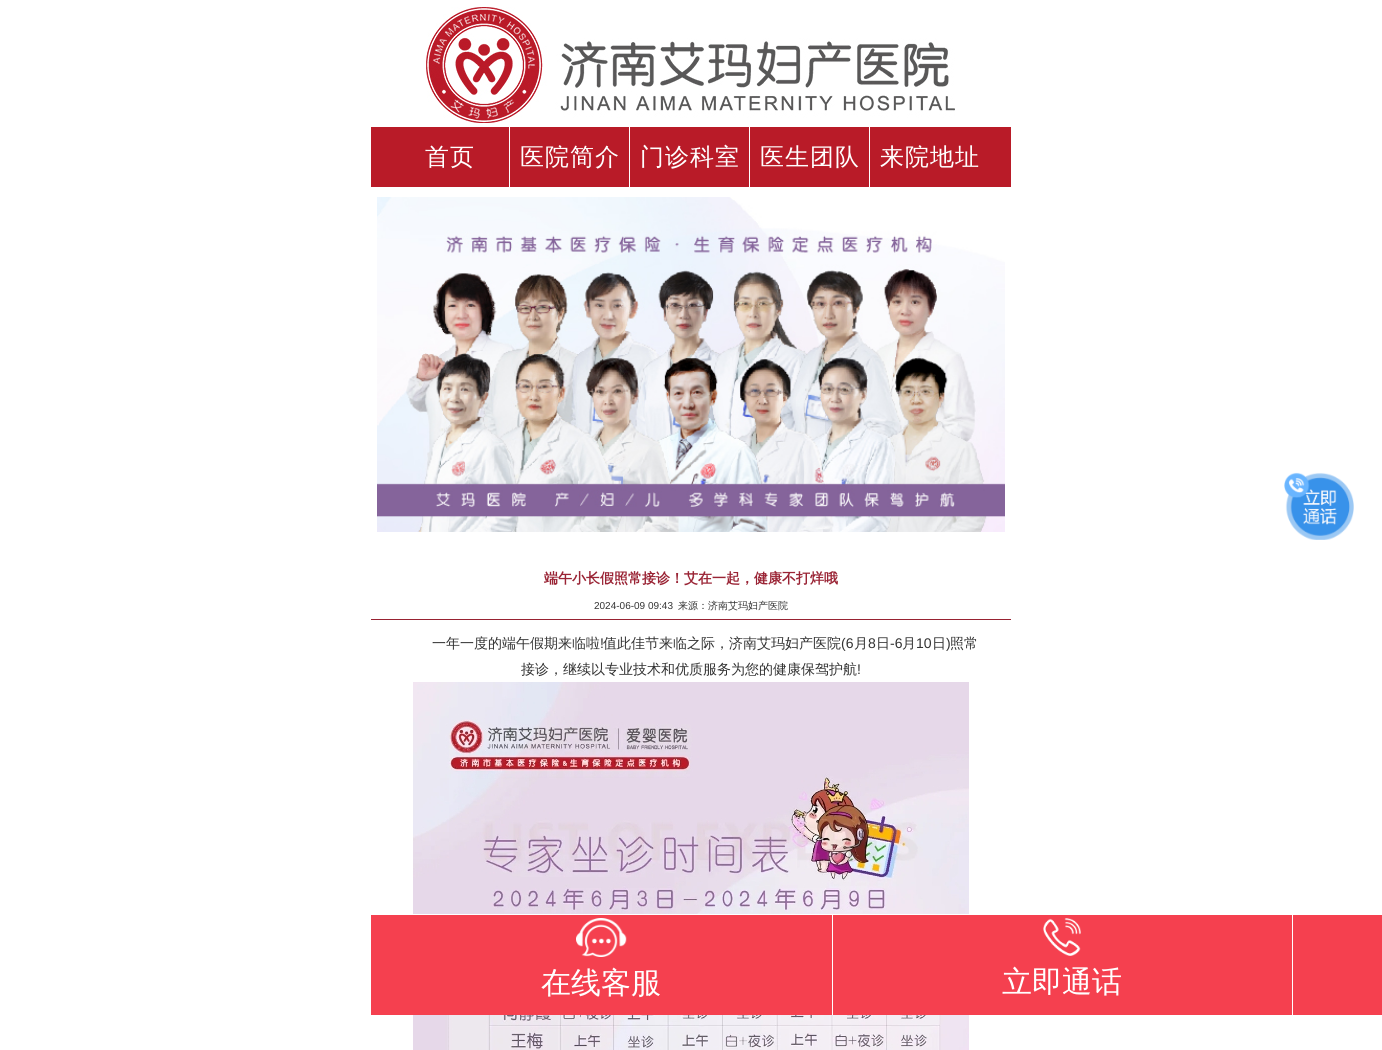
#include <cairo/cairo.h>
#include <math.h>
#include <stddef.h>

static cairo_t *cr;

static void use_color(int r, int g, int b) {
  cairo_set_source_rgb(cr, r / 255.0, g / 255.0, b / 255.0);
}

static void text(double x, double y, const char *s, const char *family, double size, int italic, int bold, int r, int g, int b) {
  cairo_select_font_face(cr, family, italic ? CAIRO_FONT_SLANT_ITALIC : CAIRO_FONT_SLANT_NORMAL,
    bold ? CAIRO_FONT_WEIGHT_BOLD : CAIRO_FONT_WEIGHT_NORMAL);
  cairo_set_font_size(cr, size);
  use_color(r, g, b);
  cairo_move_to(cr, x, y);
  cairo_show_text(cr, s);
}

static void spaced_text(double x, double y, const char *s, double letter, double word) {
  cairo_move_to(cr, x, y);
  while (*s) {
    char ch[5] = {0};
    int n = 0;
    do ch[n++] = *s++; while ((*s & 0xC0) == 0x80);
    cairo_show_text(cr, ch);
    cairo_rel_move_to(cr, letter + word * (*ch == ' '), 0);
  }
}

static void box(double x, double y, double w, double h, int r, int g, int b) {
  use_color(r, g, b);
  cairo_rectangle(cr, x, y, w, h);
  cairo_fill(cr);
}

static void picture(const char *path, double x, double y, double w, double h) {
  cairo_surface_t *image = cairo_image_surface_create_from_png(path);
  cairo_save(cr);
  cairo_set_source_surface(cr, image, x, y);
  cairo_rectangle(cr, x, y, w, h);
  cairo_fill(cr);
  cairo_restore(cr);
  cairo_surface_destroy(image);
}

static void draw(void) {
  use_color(255, 255, 255);
  cairo_paint(cr);
  picture("img_01.png", 426, 7, 529, 116);
  box(371, 127, 640, 60, 185, 27, 40);
  box(509, 127, 1, 60, 255, 255, 255);
  box(629, 127, 1, 60, 255, 255, 255);
  box(749, 127, 1, 60, 255, 255, 255);
  box(869, 127, 1, 60, 255, 255, 255);
  picture("img_02.png", 377, 197, 628, 335);
  picture("img_03.png", 1284, 472, 70, 68);
  box(371, 619, 640, 1, 152, 34, 50);
  picture("img_04.png", 413, 682, 556, 368);
  box(371, 915, 1011, 100, 245, 64, 79);
  box(413, 914, 556, 1, 255, 255, 255);
  picture("img_05.png", 576, 918, 51, 39);
  box(832, 915, 1, 100, 255, 255, 255);
  picture("img_06.png", 1043, 918, 38, 38);
  box(1292, 915, 1, 100, 255, 255, 255);
  cairo_select_font_face(cr, "WenQuanYi Zen Hei Medium", CAIRO_FONT_SLANT_NORMAL, CAIRO_FONT_WEIGHT_NORMAL);
  cairo_set_font_size(cr, 24);
  spaced_text(425, 165, "首页", 1, 0);
  spaced_text(520, 165, "医院简介", 1, 0);
  spaced_text(640, 165, "门诊科室", 1, 0);
  spaced_text(760, 165, "医生团队", 1, 0);
  spaced_text(880, 165, "来院地址", 1, 0);
  text(544, 583, "端午小长假照常接诊！艾在一起，健康不打烊哦", "WenQuanYi Zen Hei", 14, 0, 1, 154, 36, 53);
  text(594, 609, "2024-06-09 09:43", "Liberation Sans", 10, 0, 0, 50, 50, 50);
  text(678, 609, "来源：济南艾玛妇产医院", "WenQuanYi Zen Hei Medium", 10, 0, 0, 50, 50, 50);
  text(432, 648, "一年一度的端午假期来临啦", "WenQuanYi Zen Hei Medium", 14, 0, 0, 50, 50, 50);
  text(600, 648, "!", "Liberation Sans", 14, 0, 0, 50, 50, 50);
  text(603, 648, "值此佳节来临之际，济南艾玛妇产医院", "WenQuanYi Zen Hei Medium", 14, 0, 0, 50, 50, 50);
  text(841, 648, "(6", "Liberation Sans", 14, 0, 0, 50, 50, 50);
  text(854, 648, "月", "WenQuanYi Zen Hei Medium", 14, 0, 0, 50, 50, 50);
  text(868, 648, "8", "Liberation Sans", 14, 0, 0, 50, 50, 50);
  text(876, 648, "日", "WenQuanYi Zen Hei Medium", 14, 0, 0, 50, 50, 50);
  text(890, 648, "-6", "Liberation Sans", 14, 0, 0, 50, 50, 50);
  text(902, 648, "月", "WenQuanYi Zen Hei Medium", 14, 0, 0, 50, 50, 50);
  text(916, 648, "10", "Liberation Sans", 14, 0, 0, 50, 50, 50);
  text(932, 648, "日", "WenQuanYi Zen Hei Medium", 14, 0, 0, 50, 50, 50);
  text(946, 648, ")", "Liberation Sans", 14, 0, 0, 50, 50, 50);
  text(950, 648, "照常", "WenQuanYi Zen Hei Medium", 14, 0, 0, 50, 50, 50);
  text(521, 674, "接诊，继续以专业技术和优质服务为您的健康保驾护航", "WenQuanYi Zen Hei Medium", 14, 0, 0, 50, 50, 50);
  text(857, 674, "!", "Liberation Sans", 14, 0, 0, 50, 50, 50);
  text(541, 993, "在线客服", "WenQuanYi Zen Hei Medium", 30, 0, 0, 255, 255, 255);
  text(1002, 992, "立即通话", "WenQuanYi Zen Hei Medium", 30, 0, 0, 255, 255, 255);
}

int main(void) {
  cairo_surface_t *surface = cairo_image_surface_create(CAIRO_FORMAT_RGB24, 1382, 1050);
  cr = cairo_create(surface);
  cairo_font_options_t *options = cairo_font_options_create();
  cairo_font_options_set_hint_metrics(options, CAIRO_HINT_METRICS_OFF);
  cairo_font_options_set_hint_style(options, CAIRO_HINT_STYLE_NONE);
  cairo_set_font_options(cr, options);
  cairo_set_miter_limit(cr, 4);
  draw();
  cairo_surface_write_to_png(surface, "out.png");
  cairo_font_options_destroy(options);
  cairo_destroy(cr);
  cairo_surface_destroy(surface);
  return 0;
}
